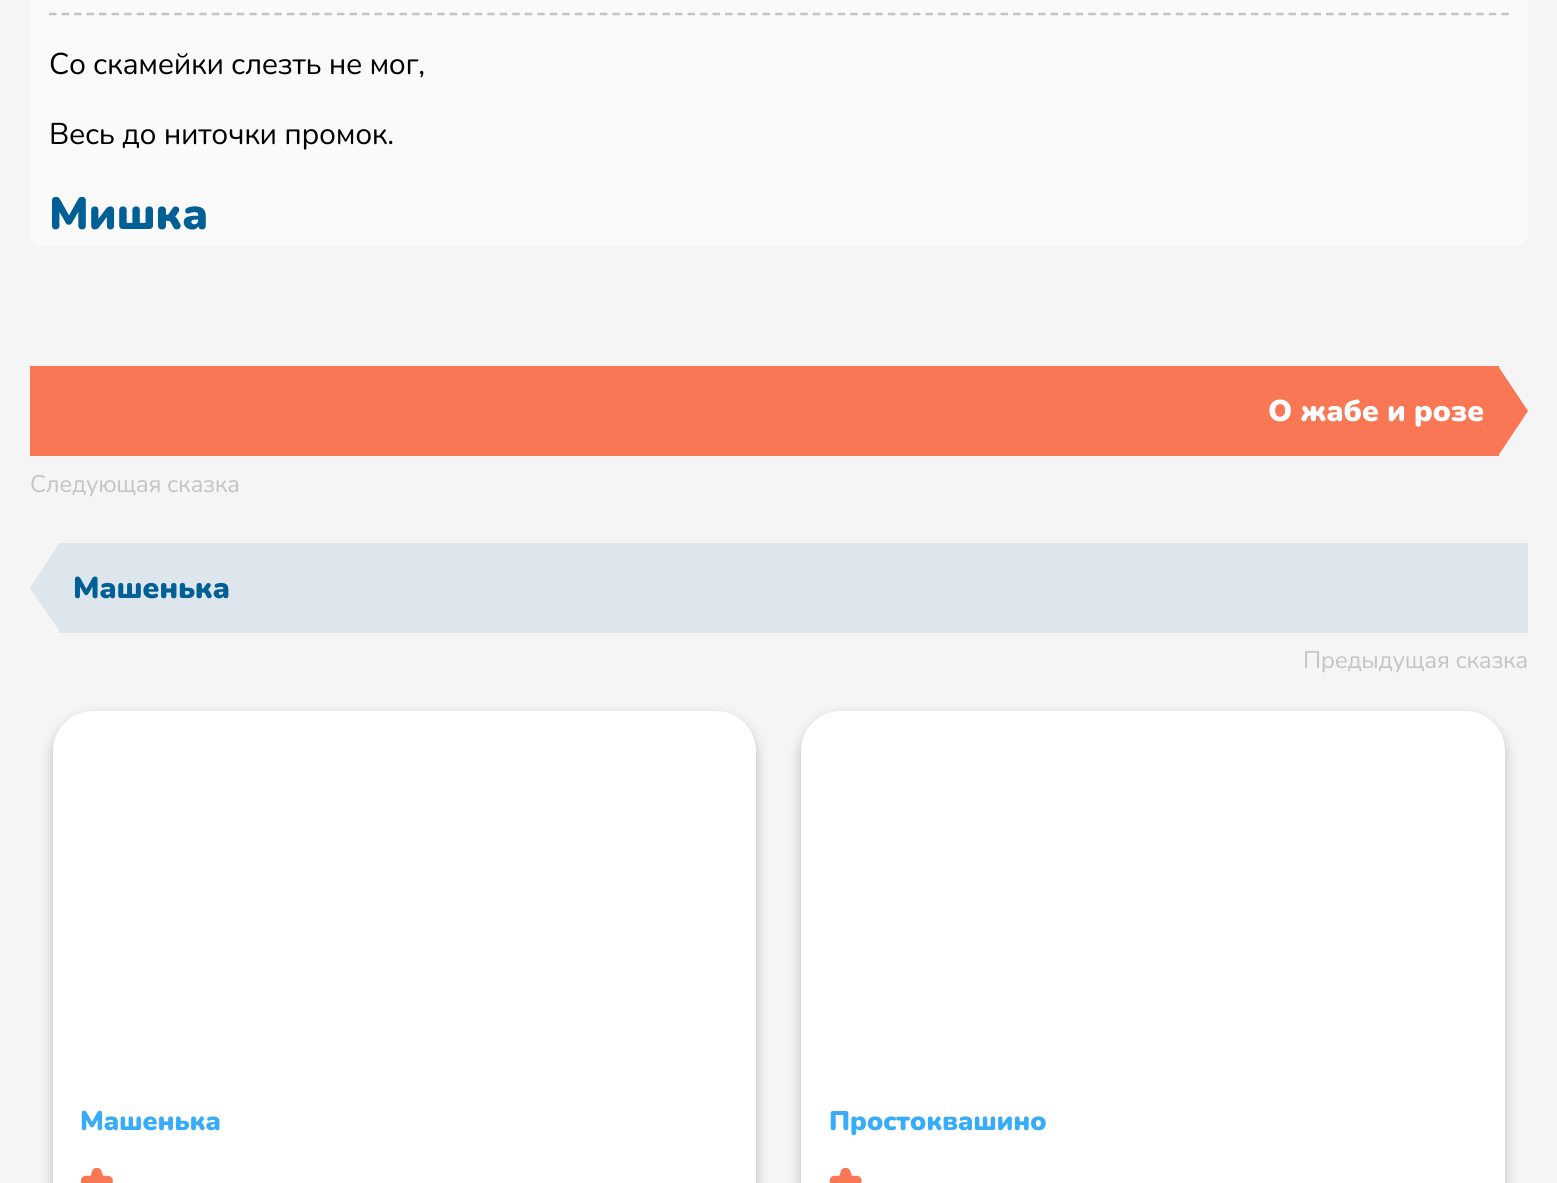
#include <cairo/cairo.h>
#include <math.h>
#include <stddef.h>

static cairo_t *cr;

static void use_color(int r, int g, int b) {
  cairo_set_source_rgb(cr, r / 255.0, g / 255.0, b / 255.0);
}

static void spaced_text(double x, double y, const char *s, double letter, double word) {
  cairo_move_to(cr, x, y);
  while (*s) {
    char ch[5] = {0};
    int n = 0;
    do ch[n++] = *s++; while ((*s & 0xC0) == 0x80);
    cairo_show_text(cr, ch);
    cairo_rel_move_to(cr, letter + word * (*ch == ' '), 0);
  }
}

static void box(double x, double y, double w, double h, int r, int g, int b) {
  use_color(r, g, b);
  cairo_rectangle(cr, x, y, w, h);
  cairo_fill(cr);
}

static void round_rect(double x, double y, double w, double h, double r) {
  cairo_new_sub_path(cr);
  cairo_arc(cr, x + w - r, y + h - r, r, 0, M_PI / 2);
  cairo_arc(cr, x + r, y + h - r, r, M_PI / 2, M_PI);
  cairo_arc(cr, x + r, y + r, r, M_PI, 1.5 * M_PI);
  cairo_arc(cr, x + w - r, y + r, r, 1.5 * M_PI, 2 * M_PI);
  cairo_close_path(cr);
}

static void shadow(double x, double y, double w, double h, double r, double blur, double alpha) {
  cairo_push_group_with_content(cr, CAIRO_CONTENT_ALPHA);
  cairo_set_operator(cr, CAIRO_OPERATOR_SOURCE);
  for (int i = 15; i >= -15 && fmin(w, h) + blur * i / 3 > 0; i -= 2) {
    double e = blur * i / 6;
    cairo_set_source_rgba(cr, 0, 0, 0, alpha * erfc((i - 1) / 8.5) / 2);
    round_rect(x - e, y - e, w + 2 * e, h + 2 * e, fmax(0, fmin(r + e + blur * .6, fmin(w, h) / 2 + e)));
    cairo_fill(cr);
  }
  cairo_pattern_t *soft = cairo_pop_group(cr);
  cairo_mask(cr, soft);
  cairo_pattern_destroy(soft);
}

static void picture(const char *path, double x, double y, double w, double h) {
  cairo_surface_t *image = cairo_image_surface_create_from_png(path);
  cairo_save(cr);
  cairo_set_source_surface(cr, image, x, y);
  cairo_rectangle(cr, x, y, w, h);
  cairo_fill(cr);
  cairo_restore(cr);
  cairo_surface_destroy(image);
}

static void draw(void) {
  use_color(245, 245, 245);
  cairo_paint(cr);
  use_color(250, 250, 250);
  round_rect(30, -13, 1498, 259, 13);
  cairo_fill(cr);
  cairo_new_path(cr);
  cairo_move_to(cr, 49, 14);
  cairo_line_to(cr, 1509, 14);
  use_color(196, 196, 196);
  cairo_set_line_width(cr, 2.5);
  cairo_set_dash(cr, (double[]){7.5, 5.02}, 2, 0);
  cairo_stroke(cr);
  box(30, 366, 1469, 90, 249, 119, 85);
  cairo_new_path(cr);
  cairo_move_to(cr, 1498, 456);
  cairo_line_to(cr, 1498, 366);
  cairo_line_to(cr, 1528, 411);
  cairo_close_path(cr);
  cairo_fill(cr);
  box(59, 543, 1469, 90, 221, 230, 236);
  cairo_new_path(cr);
  cairo_move_to(cr, 60, 542);
  cairo_line_to(cr, 60, 632);
  cairo_line_to(cr, 30, 588);
  cairo_close_path(cr);
  cairo_fill(cr);
  use_color(0, 0, 0);
  shadow(53, 716, 703, 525, 40, 6, 0.25);
  use_color(255, 255, 255);
  round_rect(53, 711, 703, 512, 40);
  cairo_fill(cr);
  picture("img_01.png", 80, 1168, 33, 15);
  use_color(0, 0, 0);
  shadow(801, 716, 704, 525, 40, 6, 0.25);
  use_color(255, 255, 255);
  round_rect(801, 711, 704, 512, 40);
  cairo_fill(cr);
  picture("img_02.png", 829, 1168, 33, 15);
  cairo_select_font_face(cr, "Nunito", CAIRO_FONT_SLANT_NORMAL, CAIRO_FONT_WEIGHT_NORMAL);
  cairo_set_font_size(cr, 30);
  use_color(0, 0, 0);
  spaced_text(49, 74, "Со скамейки слезть не мог,", -0.3, 0);
  spaced_text(49, 144, "Весь до ниточки промок.", -0.3, 0);
  cairo_select_font_face(cr, "Nunito Black", CAIRO_FONT_SLANT_NORMAL, CAIRO_FONT_WEIGHT_NORMAL);
  cairo_set_font_size(cr, 45);
  use_color(0, 95, 148);
  spaced_text(49, 229, "Мишка", -0.3, 0);
  cairo_set_font_size(cr, 30);
  use_color(255, 255, 255);
  spaced_text(1268, 421, "О жабе и розе", -0.3, 0);
  cairo_select_font_face(cr, "Nunito", CAIRO_FONT_SLANT_NORMAL, CAIRO_FONT_WEIGHT_NORMAL);
  cairo_set_font_size(cr, 24);
  use_color(196, 196, 196);
  spaced_text(30, 492, "Следующая сказка", -0.3, 0);
  cairo_select_font_face(cr, "Nunito Black", CAIRO_FONT_SLANT_NORMAL, CAIRO_FONT_WEIGHT_NORMAL);
  cairo_set_font_size(cr, 30);
  use_color(0, 95, 148);
  spaced_text(73, 598, "Машенька", -0.3, 0);
  cairo_select_font_face(cr, "Nunito", CAIRO_FONT_SLANT_NORMAL, CAIRO_FONT_WEIGHT_NORMAL);
  cairo_set_font_size(cr, 24);
  use_color(196, 196, 196);
  spaced_text(1303, 668, "Предыдущая сказка", -0.3, 0);
  cairo_select_font_face(cr, "Nunito Black", CAIRO_FONT_SLANT_NORMAL, CAIRO_FONT_WEIGHT_NORMAL);
  cairo_set_font_size(cr, 27);
  use_color(56, 172, 247);
  spaced_text(80, 1130, "Машенька", -0.3, 0);
  spaced_text(829, 1130, "Простоквашино", -0.3, 0);
}

int main(void) {
  cairo_surface_t *surface = cairo_image_surface_create(CAIRO_FORMAT_RGB24, 1557, 1183);
  cr = cairo_create(surface);
  cairo_font_options_t *options = cairo_font_options_create();
  cairo_font_options_set_hint_metrics(options, CAIRO_HINT_METRICS_OFF);
  cairo_font_options_set_hint_style(options, CAIRO_HINT_STYLE_NONE);
  cairo_set_font_options(cr, options);
  cairo_set_miter_limit(cr, 4);
  draw();
  cairo_surface_write_to_png(surface, "out.png");
  cairo_font_options_destroy(options);
  cairo_destroy(cr);
  cairo_surface_destroy(surface);
  return 0;
}
